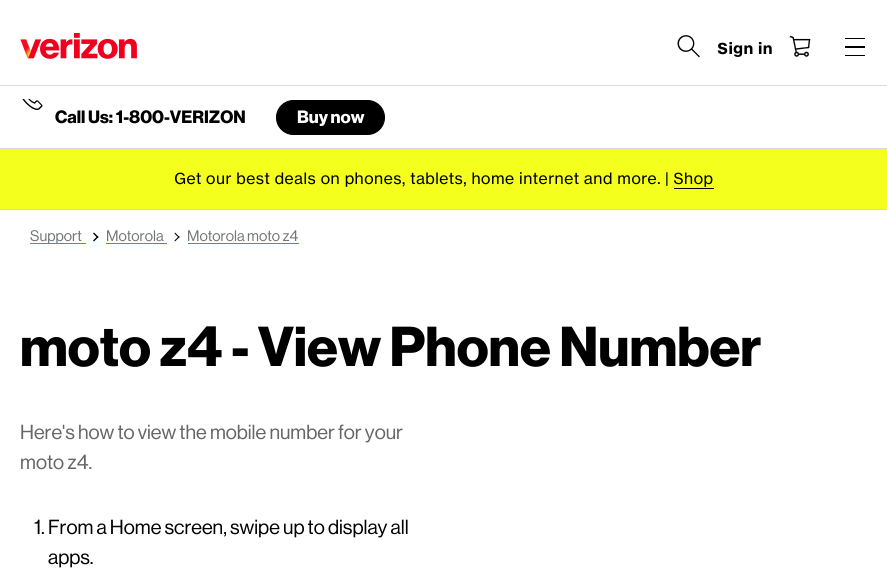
#include <cairo/cairo.h>
#include <math.h>
#include <stddef.h>

static cairo_t *cr;

static void use_color(int r, int g, int b) {
  cairo_set_source_rgb(cr, r / 255.0, g / 255.0, b / 255.0);
}

static void text(double x, double y, const char *s, const char *family, double size, int italic, int bold, int r, int g, int b) {
  cairo_select_font_face(cr, family, italic ? CAIRO_FONT_SLANT_ITALIC : CAIRO_FONT_SLANT_NORMAL,
    bold ? CAIRO_FONT_WEIGHT_BOLD : CAIRO_FONT_WEIGHT_NORMAL);
  cairo_set_font_size(cr, size);
  use_color(r, g, b);
  cairo_move_to(cr, x, y);
  cairo_show_text(cr, s);
}

static void box(double x, double y, double w, double h, int r, int g, int b) {
  use_color(r, g, b);
  cairo_rectangle(cr, x, y, w, h);
  cairo_fill(cr);
}

static void round_rect(double x, double y, double w, double h, double r) {
  cairo_new_sub_path(cr);
  cairo_arc(cr, x + w - r, y + h - r, r, 0, M_PI / 2);
  cairo_arc(cr, x + r, y + h - r, r, M_PI / 2, M_PI);
  cairo_arc(cr, x + r, y + r, r, M_PI, 1.5 * M_PI);
  cairo_arc(cr, x + w - r, y + r, r, 1.5 * M_PI, 2 * M_PI);
  cairo_close_path(cr);
}

static void picture(const char *path, double x, double y, double w, double h) {
  cairo_surface_t *image = cairo_image_surface_create_from_png(path);
  cairo_save(cr);
  cairo_set_source_surface(cr, image, x, y);
  cairo_rectangle(cr, x, y, w, h);
  cairo_fill(cr);
  cairo_restore(cr);
  cairo_surface_destroy(image);
}

static void draw(void) {
  use_color(255, 255, 255);
  cairo_paint(cr);
  box(0, 209, 887, 1, 216, 218, 218);
  picture("img_01.png", 20, 33, 117, 26);
  picture("img_02.png", 677, 35, 23, 23);
  picture("img_03.png", 789, 35, 22, 22);
  box(845, 38, 20, 1, 0, 0, 0);
  box(845, 55, 20, 1, 0, 0, 0);
  box(845, 46, 20, 2, 0, 0, 0);
  box(0, 85, 887, 1, 216, 218, 218);
  picture("img_04.png", 22, 99, 21, 11);
  use_color(0, 0, 0);
  round_rect(276.5, 100.5, 108, 34, 17);
  cairo_fill_preserve(cr);
  cairo_set_line_width(cr, 1);
  cairo_stroke(cr);
  box(0, 149, 887, 60, 245, 255, 30);
  box(0, 148, 887, 1, 216, 218, 218);
  box(674, 188, 40, 1, 0, 0, 0);
  box(30, 243, 56, 1, 66, 139, 202);
  use_color(0, 0, 0);
  cairo_new_path(cr);
  cairo_move_to(cr, 93, 233.5);
  cairo_line_to(cr, 94, 232.5);
  cairo_line_to(cr, 98.5, 237);
  cairo_line_to(cr, 97.5, 238);
  cairo_close_path(cr);
  cairo_fill(cr);
  cairo_new_path(cr);
  cairo_move_to(cr, 93, 240.5);
  cairo_line_to(cr, 97.5, 236);
  cairo_line_to(cr, 98.5, 237);
  cairo_line_to(cr, 94, 241.5);
  cairo_close_path(cr);
  cairo_fill(cr);
  box(106, 243, 61, 1, 66, 139, 202);
  use_color(0, 0, 0);
  cairo_new_path(cr);
  cairo_move_to(cr, 174.5, 233.5);
  cairo_line_to(cr, 175, 232.5);
  cairo_line_to(cr, 179.5, 237);
  cairo_line_to(cr, 179, 238);
  cairo_close_path(cr);
  cairo_fill(cr);
  cairo_new_path(cr);
  cairo_move_to(cr, 174.5, 240.5);
  cairo_line_to(cr, 179, 236);
  cairo_line_to(cr, 179.5, 237);
  cairo_line_to(cr, 175, 241.5);
  cairo_close_path(cr);
  cairo_fill(cr);
  box(188, 243, 111, 1, 66, 139, 202);
  text(717, 54, "Sign in", "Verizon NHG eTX", 15, 0, 1, 0, 0, 0);
  text(55, 123, "Call Us: 1-800-VERIZON", "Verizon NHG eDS", 17.5, 0, 1, 0, 0, 0);
  text(297, 123, "Buy now", "Verizon NHG eDS", 17.5, 0, 1, 255, 255, 255);
  text(174, 184, "Get our best deals on phones, tablets, home internet and more. | Shop", "Verizon NHG eTX", 15, 0, 0, 0, 0, 0);
  text(30, 241, "Support", "Verizon NHG eDS", 15, 0, 0, 116, 118, 118);
  text(106, 241, "Motorola", "Verizon NHG eDS", 15, 0, 0, 116, 118, 118);
  text(187, 241, "Motorola moto z4", "Verizon NHG eDS", 15, 0, 0, 116, 118, 118);
  text(20, 366, "moto z4 - View Phone Number", "Verizon NHG eDS", 55, 0, 1, 0, 0, 0);
  text(20, 439, "Here's how to view the mobile number for your", "Verizon NHG eDS", 20, 0, 0, 102, 102, 102);
  text(20, 469, "moto z4.", "Verizon NHG eDS", 20, 0, 0, 102, 102, 102);
  text(34, 534, "1. From a Home screen, swipe up to display all", "Verizon NHG eDS", 20, 0, 0, 0, 0, 0);
  text(48, 564, "apps.", "Verizon NHG eDS", 20, 0, 0, 0, 0, 0);
}

int main(void) {
  cairo_surface_t *surface = cairo_image_surface_create(CAIRO_FORMAT_RGB24, 887, 574);
  cr = cairo_create(surface);
  cairo_font_options_t *options = cairo_font_options_create();
  cairo_font_options_set_hint_metrics(options, CAIRO_HINT_METRICS_OFF);
  cairo_font_options_set_hint_style(options, CAIRO_HINT_STYLE_NONE);
  cairo_set_font_options(cr, options);
  cairo_set_miter_limit(cr, 4);
  draw();
  cairo_surface_write_to_png(surface, "out.png");
  cairo_font_options_destroy(options);
  cairo_destroy(cr);
  cairo_surface_destroy(surface);
  return 0;
}
